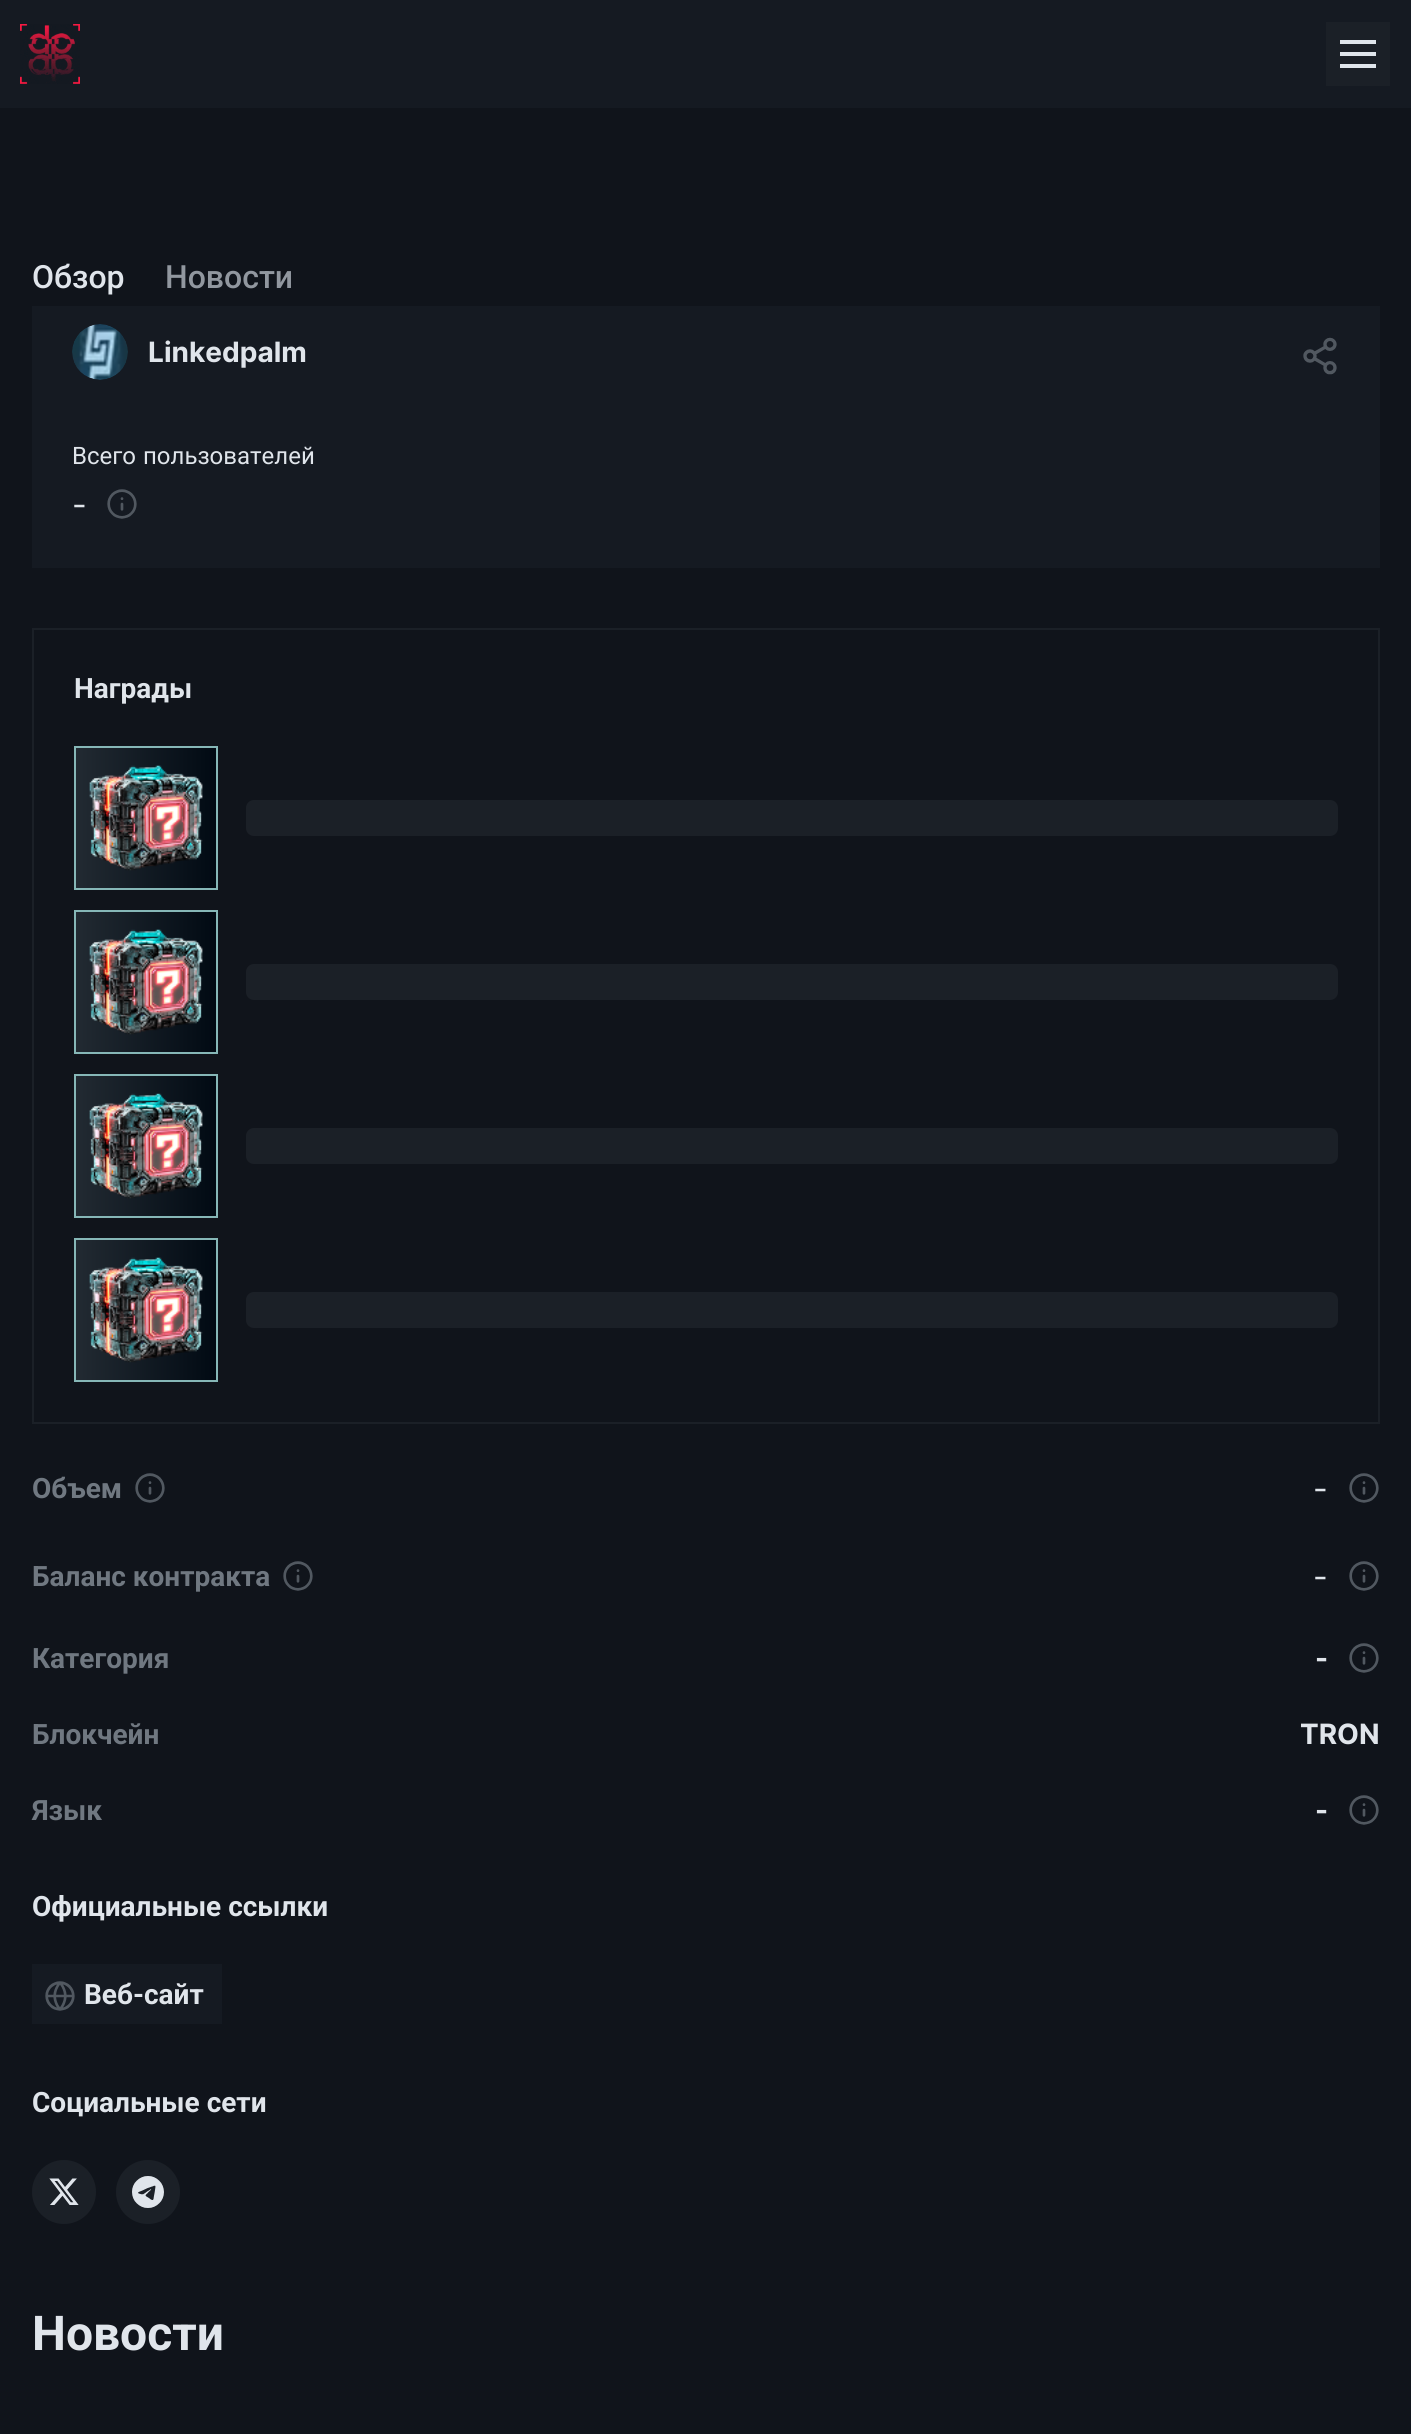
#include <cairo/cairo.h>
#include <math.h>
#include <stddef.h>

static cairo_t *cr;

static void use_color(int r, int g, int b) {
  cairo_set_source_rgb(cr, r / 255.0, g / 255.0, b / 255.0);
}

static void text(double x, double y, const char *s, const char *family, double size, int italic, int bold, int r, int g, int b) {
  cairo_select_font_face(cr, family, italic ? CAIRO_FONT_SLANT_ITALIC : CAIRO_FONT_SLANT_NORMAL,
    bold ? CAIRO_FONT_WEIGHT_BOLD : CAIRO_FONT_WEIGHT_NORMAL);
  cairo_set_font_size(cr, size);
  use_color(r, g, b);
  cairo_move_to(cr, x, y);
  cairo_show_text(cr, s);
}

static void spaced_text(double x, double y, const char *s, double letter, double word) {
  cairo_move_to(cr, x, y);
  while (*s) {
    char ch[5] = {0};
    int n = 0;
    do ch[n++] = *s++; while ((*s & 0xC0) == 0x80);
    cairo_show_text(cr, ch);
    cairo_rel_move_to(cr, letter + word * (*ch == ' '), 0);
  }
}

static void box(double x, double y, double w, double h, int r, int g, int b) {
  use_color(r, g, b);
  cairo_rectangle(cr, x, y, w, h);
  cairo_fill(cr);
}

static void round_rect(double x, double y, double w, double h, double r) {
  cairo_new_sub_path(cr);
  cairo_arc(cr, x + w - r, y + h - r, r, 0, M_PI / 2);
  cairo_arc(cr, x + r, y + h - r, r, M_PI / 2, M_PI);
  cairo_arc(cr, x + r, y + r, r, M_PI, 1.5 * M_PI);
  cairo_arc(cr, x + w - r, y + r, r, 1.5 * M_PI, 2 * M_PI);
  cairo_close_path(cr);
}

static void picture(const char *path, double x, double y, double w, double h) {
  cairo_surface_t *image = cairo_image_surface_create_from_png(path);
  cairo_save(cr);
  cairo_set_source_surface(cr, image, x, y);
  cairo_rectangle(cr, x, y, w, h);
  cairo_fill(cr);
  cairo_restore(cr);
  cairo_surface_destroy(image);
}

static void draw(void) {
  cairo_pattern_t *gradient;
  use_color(16, 20, 27);
  cairo_paint(cr);
  box(0, 0, 1411, 108, 21, 26, 34);
  picture("img_01.png", 20, 24, 60, 60);
  box(1326, 22, 64, 64, 27, 32, 39);
  box(1340, 40, 36, 4, 224, 229, 235);
  box(1340, 52, 36, 4, 224, 229, 235);
  box(1340, 64, 36, 4, 224, 229, 235);
  box(32, 306, 1348, 262, 21, 26, 34);
  picture("img_02.png", 72, 324, 56, 56);
  picture("img_03.png", 1303, 337, 34, 38);
  picture("img_04.png", 107, 489, 30, 30);
  cairo_rectangle(cr, 33, 629, 1346, 794);
  use_color(27, 32, 39);
  cairo_stroke(cr);
  cairo_rectangle(cr, 75, 747, 142, 142);
  use_color(134, 183, 183);
  cairo_stroke(cr);
  gradient = cairo_pattern_create_linear(76, 818, 216, 818);
  cairo_pattern_add_color_stop_rgba(gradient, 0, 0.133, 0.165, 0.196, 1);
  cairo_pattern_add_color_stop_rgba(gradient, 1, 0.004, 0.039, 0.075, 1);
  cairo_set_source(cr, gradient);
  cairo_pattern_destroy(gradient);
  cairo_rectangle(cr, 76, 748, 140, 140);
  cairo_fill(cr);
  picture("img_05.png", 89, 765, 114, 106);
  use_color(27, 32, 39);
  round_rect(246, 800, 1092, 36, 8);
  cairo_fill(cr);
  cairo_rectangle(cr, 75, 911, 142, 142);
  use_color(134, 183, 183);
  cairo_stroke(cr);
  gradient = cairo_pattern_create_linear(76, 982, 216, 982);
  cairo_pattern_add_color_stop_rgba(gradient, 0, 0.133, 0.165, 0.196, 1);
  cairo_pattern_add_color_stop_rgba(gradient, 1, 0.004, 0.039, 0.075, 1);
  cairo_set_source(cr, gradient);
  cairo_pattern_destroy(gradient);
  cairo_rectangle(cr, 76, 912, 140, 140);
  cairo_fill(cr);
  picture("img_06.png", 89, 929, 114, 106);
  use_color(27, 32, 39);
  round_rect(246, 964, 1092, 36, 8);
  cairo_fill(cr);
  cairo_rectangle(cr, 75, 1075, 142, 142);
  use_color(134, 183, 183);
  cairo_stroke(cr);
  gradient = cairo_pattern_create_linear(76, 1146, 216, 1146);
  cairo_pattern_add_color_stop_rgba(gradient, 0, 0.133, 0.165, 0.196, 1);
  cairo_pattern_add_color_stop_rgba(gradient, 1, 0.004, 0.039, 0.075, 1);
  cairo_set_source(cr, gradient);
  cairo_pattern_destroy(gradient);
  cairo_rectangle(cr, 76, 1076, 140, 140);
  cairo_fill(cr);
  picture("img_07.png", 89, 1093, 114, 106);
  use_color(27, 32, 39);
  round_rect(246, 1128, 1092, 36, 8);
  cairo_fill(cr);
  cairo_rectangle(cr, 75, 1239, 142, 142);
  use_color(134, 183, 183);
  cairo_stroke(cr);
  gradient = cairo_pattern_create_linear(76, 1310, 216, 1310);
  cairo_pattern_add_color_stop_rgba(gradient, 0, 0.133, 0.165, 0.196, 1);
  cairo_pattern_add_color_stop_rgba(gradient, 1, 0.004, 0.039, 0.075, 1);
  cairo_set_source(cr, gradient);
  cairo_pattern_destroy(gradient);
  cairo_rectangle(cr, 76, 1240, 140, 140);
  cairo_fill(cr);
  picture("img_08.png", 89, 1257, 114, 106);
  use_color(27, 32, 39);
  round_rect(246, 1292, 1092, 36, 8);
  cairo_fill(cr);
  picture("img_09.png", 135, 1473, 30, 30);
  picture("img_09.png", 1349, 1473, 30, 30);
  picture("img_09.png", 283, 1561, 30, 30);
  picture("img_09.png", 1349, 1561, 30, 30);
  picture("img_09.png", 1349, 1643, 30, 30);
  picture("img_09.png", 1349, 1795, 30, 30);
  box(32, 1964, 190, 60, 21, 26, 34);
  picture("img_10.png", 45, 1981, 30, 30);
  use_color(27, 32, 39);
  cairo_arc(cr, 64, 2192, 32, 0, 2 * M_PI);
  cairo_fill(cr);
  picture("img_11.png", 49, 2178, 30, 27);
  cairo_arc(cr, 148, 2192, 32, 0, 2 * M_PI);
  cairo_fill(cr);
  picture("img_12.png", 132, 2176, 32, 32);
  text(32, 288, "Обзор", "Roboto Medium", 32, 0, 0, 224, 229, 235);
  text(165, 288, "Новости", "Roboto Medium", 32, 0, 0, 145, 151, 159);
  text(148, 362, "Linkedpalm", "Inter", 28, 0, 1, 224, 229, 235);
  cairo_select_font_face(cr, "Roboto", CAIRO_FONT_SLANT_NORMAL, CAIRO_FONT_WEIGHT_NORMAL);
  cairo_set_font_size(cr, 24);
  spaced_text(72, 464, "Всего пользователей", 0, 1);
  text(72, 516, "-", "Inter", 32, 0, 0, 224, 229, 235);
  text(74, 698, "Награды", "Roboto", 28, 0, 1, 224, 229, 235);
  text(32, 1498, "Объем", "Roboto", 28, 0, 1, 112, 120, 129);
  text(1313, 1500, "-", "Inter", 32, 0, 0, 224, 229, 235);
  text(32, 1586, "Баланс контракта", "Roboto", 28, 0, 1, 112, 120, 129);
  text(1313, 1588, "-", "Inter", 32, 0, 0, 224, 229, 235);
  text(32, 1668, "Категория", "Roboto", 28, 0, 1, 112, 120, 129);
  text(1315, 1668, "-", "Inter", 28, 0, 1, 224, 229, 235);
  text(32, 1744, "Блокчейн", "Roboto", 28, 0, 1, 112, 120, 129);
  text(1300, 1744, "TRON", "Inter", 28, 0, 1, 224, 229, 235);
  text(32, 1820, "Язык", "Roboto", 28, 0, 1, 112, 120, 129);
  text(1315, 1820, "-", "Inter", 28, 0, 1, 224, 229, 235);
  text(32, 1916, "Официальные ссылки", "Roboto", 28, 0, 1, 224, 229, 235);
  text(84, 2004, "Веб-сайт", "Roboto", 28, 0, 1, 224, 229, 235);
  text(32, 2112, "Социальные сети", "Roboto", 28, 0, 1, 224, 229, 235);
  text(32, 2350, "Новости", "Roboto", 48, 0, 1, 224, 229, 235);
}

int main(void) {
  cairo_surface_t *surface = cairo_image_surface_create(CAIRO_FORMAT_RGB24, 1411, 2434);
  cr = cairo_create(surface);
  cairo_font_options_t *options = cairo_font_options_create();
  cairo_font_options_set_hint_metrics(options, CAIRO_HINT_METRICS_OFF);
  cairo_font_options_set_hint_style(options, CAIRO_HINT_STYLE_NONE);
  cairo_set_font_options(cr, options);
  cairo_set_miter_limit(cr, 4);
  draw();
  cairo_surface_write_to_png(surface, "out.png");
  cairo_font_options_destroy(options);
  cairo_destroy(cr);
  cairo_surface_destroy(surface);
  return 0;
}
